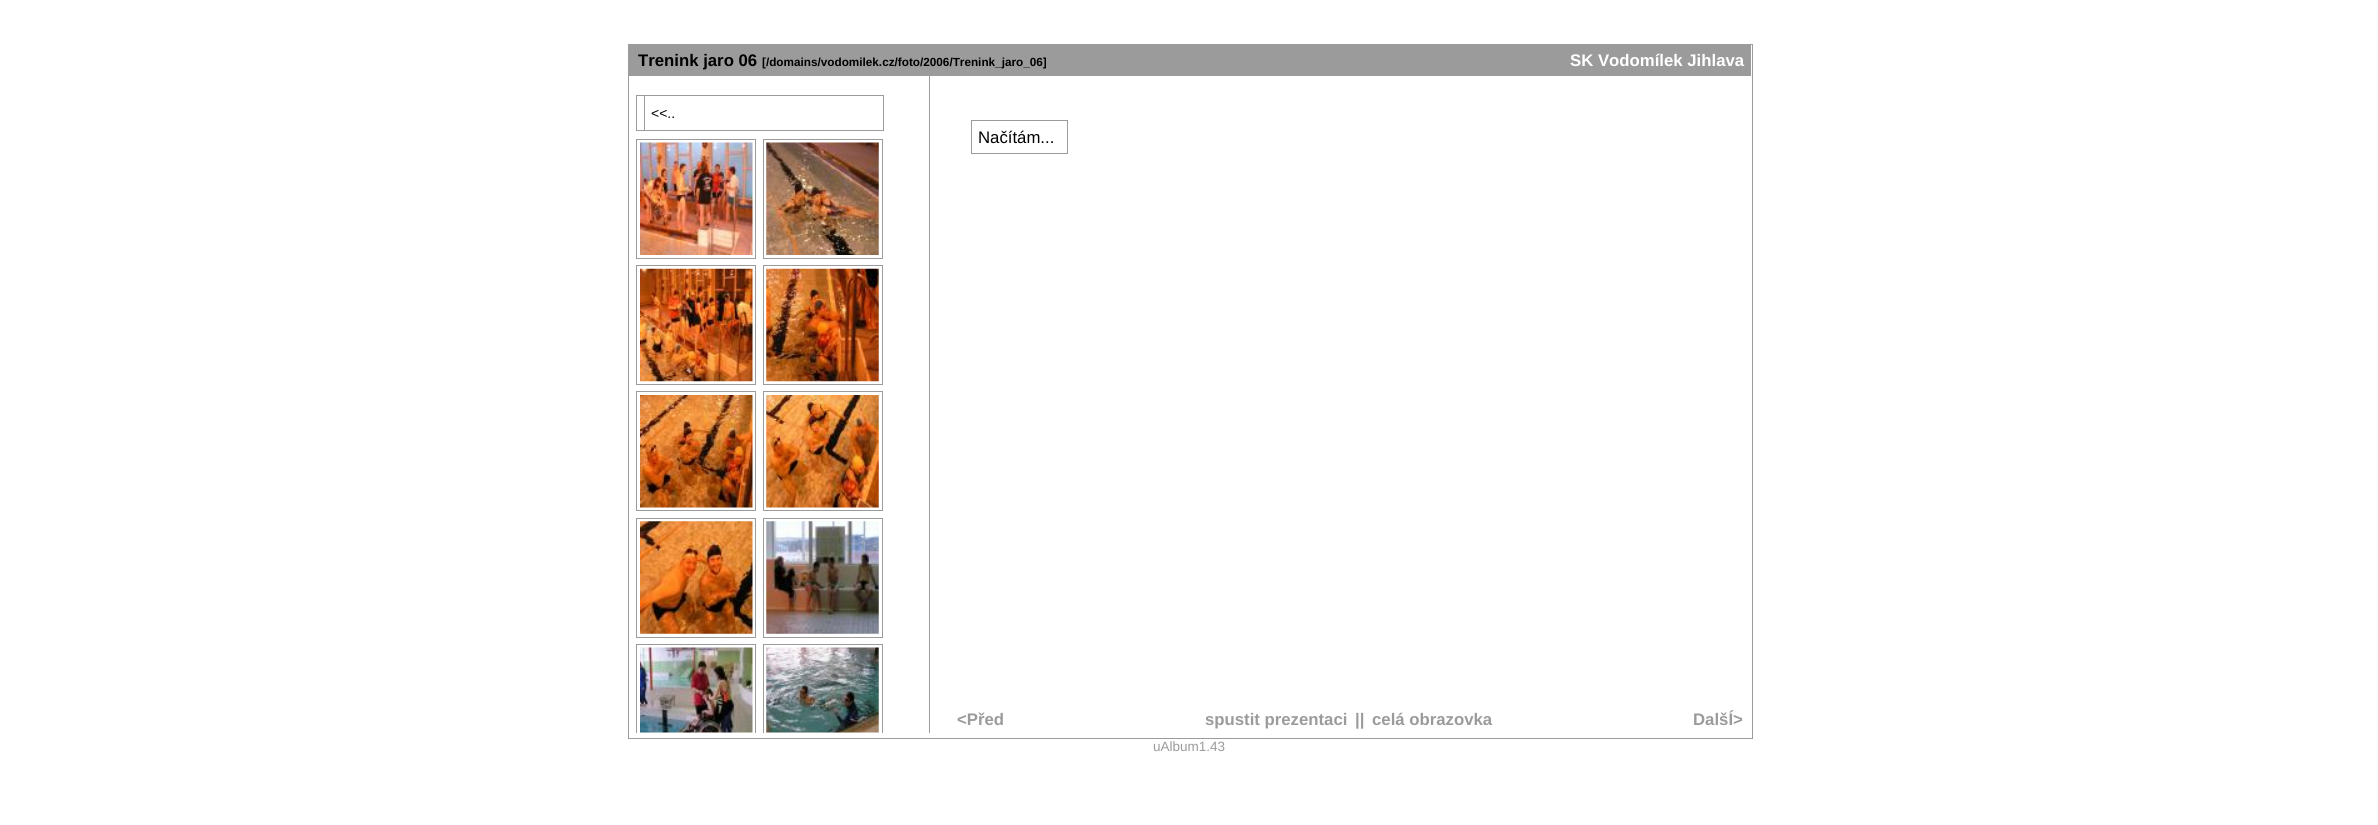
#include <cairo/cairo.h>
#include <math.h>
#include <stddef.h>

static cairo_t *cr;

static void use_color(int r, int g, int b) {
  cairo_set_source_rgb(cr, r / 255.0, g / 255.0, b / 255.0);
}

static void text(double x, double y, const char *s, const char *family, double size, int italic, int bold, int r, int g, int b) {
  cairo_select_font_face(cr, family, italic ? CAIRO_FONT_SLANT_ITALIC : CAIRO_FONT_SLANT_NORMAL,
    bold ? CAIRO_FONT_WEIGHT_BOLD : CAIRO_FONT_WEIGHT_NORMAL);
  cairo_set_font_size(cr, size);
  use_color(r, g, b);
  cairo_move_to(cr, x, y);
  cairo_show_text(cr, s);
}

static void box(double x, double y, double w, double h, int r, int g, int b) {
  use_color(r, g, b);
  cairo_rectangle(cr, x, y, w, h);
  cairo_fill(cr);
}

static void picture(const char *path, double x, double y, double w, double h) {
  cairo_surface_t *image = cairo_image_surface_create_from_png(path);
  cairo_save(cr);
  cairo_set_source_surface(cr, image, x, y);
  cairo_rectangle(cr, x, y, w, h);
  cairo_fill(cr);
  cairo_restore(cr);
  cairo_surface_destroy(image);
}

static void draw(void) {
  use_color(255, 255, 255);
  cairo_paint(cr);
  cairo_rectangle(cr, 628.5, 44.5, 1124, 694);
  use_color(155, 155, 155);
  cairo_set_line_width(cr, 1);
  cairo_stroke(cr);
  box(629, 45, 1122, 31, 155, 155, 155);
  box(929, 76, 1, 657, 155, 155, 155);
  cairo_rectangle(cr, 636.5, 95.5, 247, 35);
  cairo_stroke(cr);
  box(644, 96, 1, 34, 155, 155, 155);
  cairo_rectangle(cr, 636.5, 139.5, 119, 119);
  cairo_stroke(cr);
  cairo_rectangle(cr, 763.5, 139.5, 119, 119);
  cairo_stroke(cr);
  picture("img_01.png", 640, 142, 113, 113);
  picture("img_02.png", 766, 142, 113, 113);
  cairo_rectangle(cr, 636.5, 265.5, 119, 119);
  cairo_stroke(cr);
  cairo_rectangle(cr, 763.5, 265.5, 119, 119);
  cairo_stroke(cr);
  picture("img_03.png", 640, 268, 113, 114);
  picture("img_04.png", 766, 268, 113, 114);
  cairo_rectangle(cr, 636.5, 391.5, 119, 119);
  cairo_stroke(cr);
  cairo_rectangle(cr, 763.5, 391.5, 119, 119);
  cairo_stroke(cr);
  picture("img_05.png", 640, 395, 113, 113);
  picture("img_06.png", 766, 395, 113, 113);
  cairo_rectangle(cr, 636.5, 518.5, 119, 119);
  cairo_stroke(cr);
  cairo_rectangle(cr, 763.5, 518.5, 119, 119);
  cairo_stroke(cr);
  picture("img_07.png", 640, 521, 113, 113);
  picture("img_08.png", 766, 521, 113, 113);
  cairo_save(cr);
  cairo_rectangle(cr, 629, 76, 300, 657);
  cairo_clip(cr);
  cairo_rectangle(cr, 636.5, 644.5, 119, 119);
  cairo_stroke(cr);
  cairo_rectangle(cr, 763.5, 644.5, 119, 119);
  cairo_stroke(cr);
  cairo_restore(cr);
  picture("img_09.png", 640, 647, 113, 86);
  picture("img_10.png", 766, 647, 113, 86);
  cairo_rectangle(cr, 971.5, 120.5, 96, 33);
  cairo_stroke(cr);
  text(638, 66, "Trenink jaro 06", "Liberation Sans", 16.75, 0, 1, 0, 0, 0);
  text(762, 66, "[/domains/vodomilek.cz/foto/2006/Trenink_jaro_06]", "Liberation Sans", 11.75, 0, 1, 0, 0, 0);
  text(1570, 66, "SK Vodomílek Jihlava", "Liberation Sans", 16.75, 0, 1, 255, 255, 255);
  text(651, 118, "<<..", "Liberation Sans", 14, 0, 0, 0, 0, 0);
  text(978, 143, "Načítám...", "Liberation Sans", 16.75, 0, 0, 0, 0, 0);
  text(957, 725, "<Před", "Liberation Sans", 16.75, 0, 1, 155, 155, 155);
  text(1205, 725, "spustit prezentaci", "Liberation Sans", 16.75, 0, 1, 155, 155, 155);
  text(1355, 725, "||", "Liberation Sans", 16.75, 0, 1, 155, 155, 155);
  text(1372, 725, "celá obrazovka", "Liberation Sans", 16.75, 0, 1, 155, 155, 155);
  text(1693, 725, "DalšÍ>", "Liberation Sans", 16.75, 0, 1, 155, 155, 155);
  text(1153, 751, "uAlbum1.43", "Liberation Sans", 13.5, 0, 0, 155, 155, 155);
}

int main(void) {
  cairo_surface_t *surface = cairo_image_surface_create(CAIRO_FORMAT_RGB24, 2378, 825);
  cr = cairo_create(surface);
  cairo_font_options_t *options = cairo_font_options_create();
  cairo_font_options_set_hint_metrics(options, CAIRO_HINT_METRICS_OFF);
  cairo_font_options_set_hint_style(options, CAIRO_HINT_STYLE_NONE);
  cairo_set_font_options(cr, options);
  cairo_set_miter_limit(cr, 4);
  draw();
  cairo_surface_write_to_png(surface, "out.png");
  cairo_font_options_destroy(options);
  cairo_destroy(cr);
  cairo_surface_destroy(surface);
  return 0;
}
